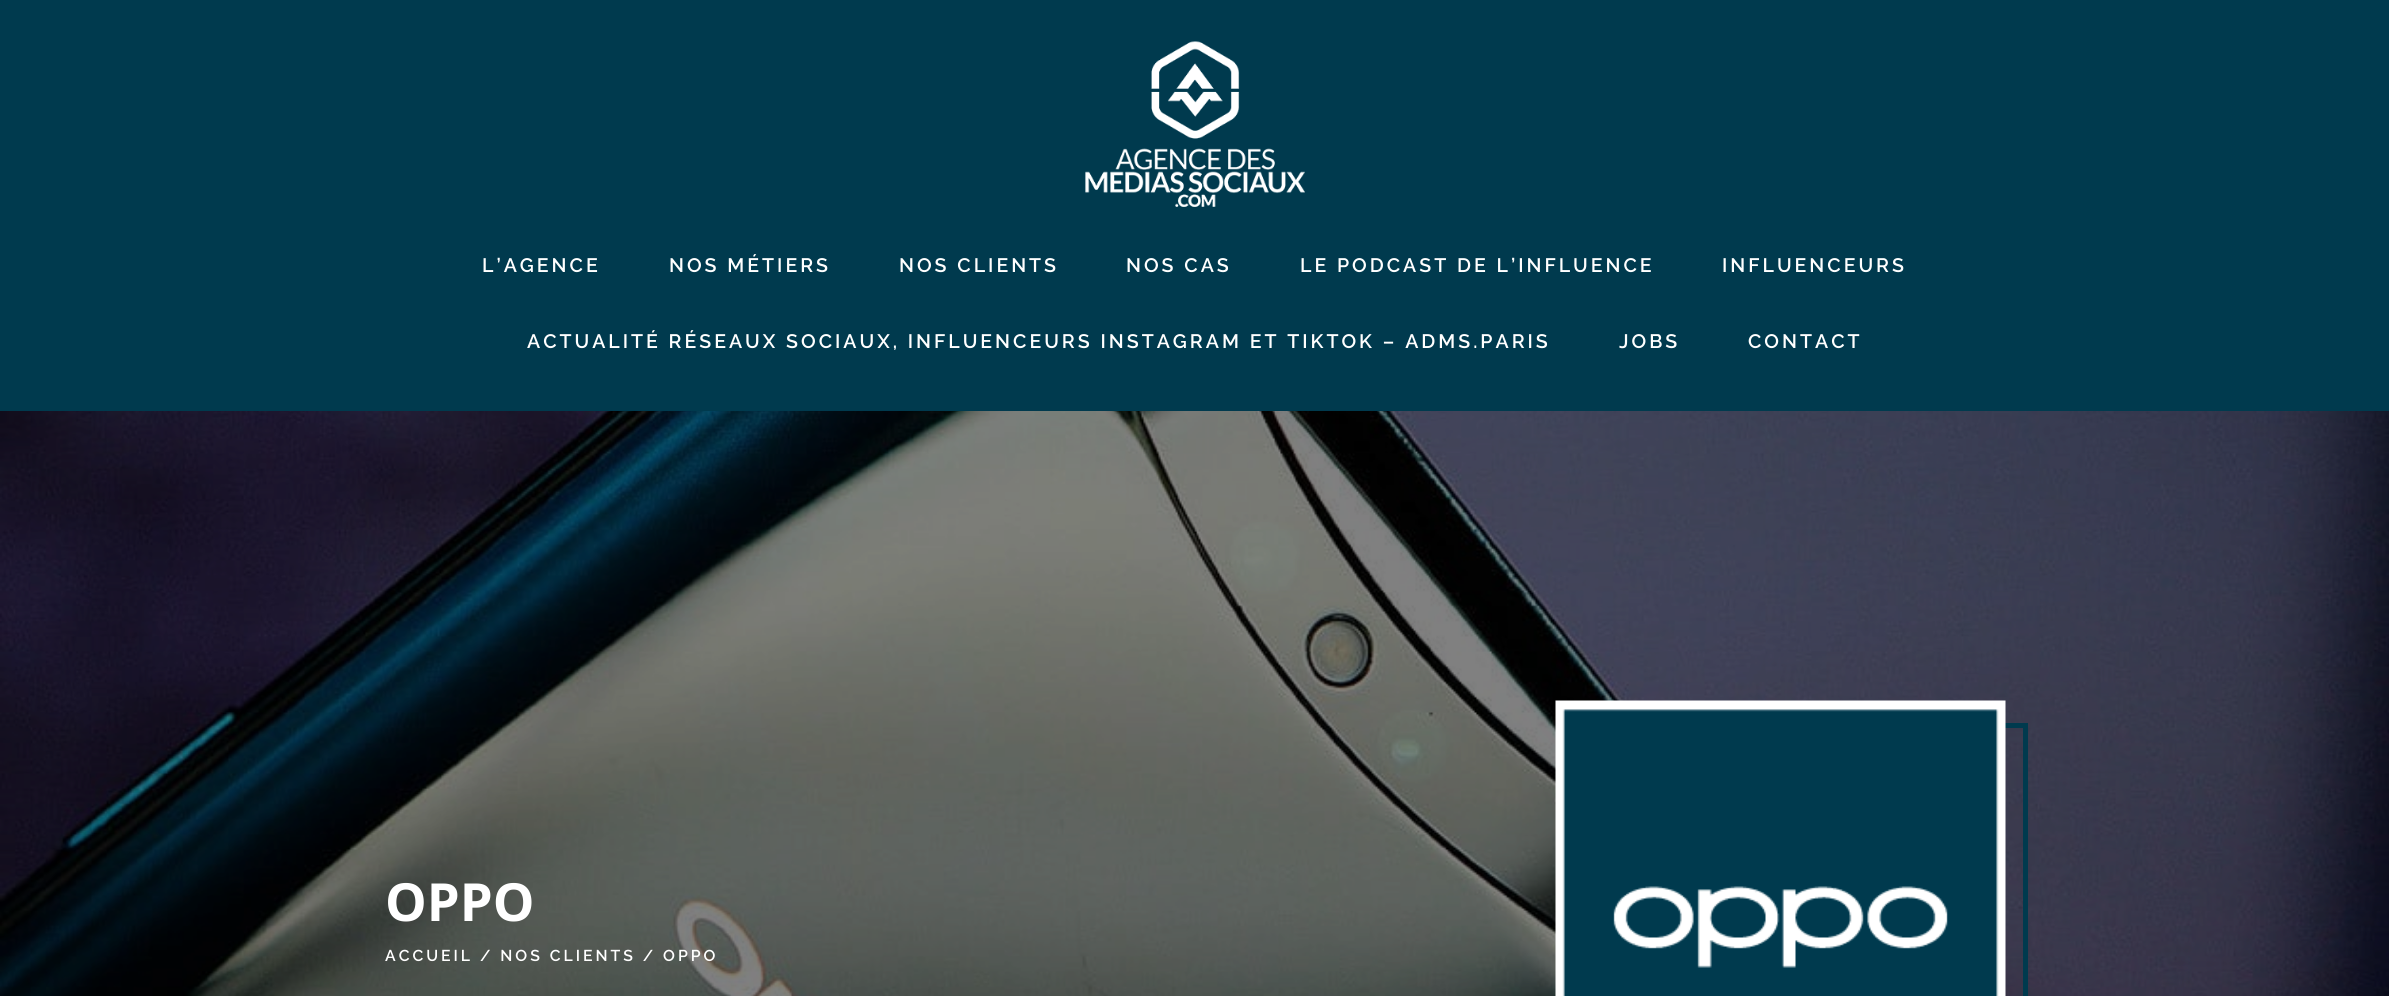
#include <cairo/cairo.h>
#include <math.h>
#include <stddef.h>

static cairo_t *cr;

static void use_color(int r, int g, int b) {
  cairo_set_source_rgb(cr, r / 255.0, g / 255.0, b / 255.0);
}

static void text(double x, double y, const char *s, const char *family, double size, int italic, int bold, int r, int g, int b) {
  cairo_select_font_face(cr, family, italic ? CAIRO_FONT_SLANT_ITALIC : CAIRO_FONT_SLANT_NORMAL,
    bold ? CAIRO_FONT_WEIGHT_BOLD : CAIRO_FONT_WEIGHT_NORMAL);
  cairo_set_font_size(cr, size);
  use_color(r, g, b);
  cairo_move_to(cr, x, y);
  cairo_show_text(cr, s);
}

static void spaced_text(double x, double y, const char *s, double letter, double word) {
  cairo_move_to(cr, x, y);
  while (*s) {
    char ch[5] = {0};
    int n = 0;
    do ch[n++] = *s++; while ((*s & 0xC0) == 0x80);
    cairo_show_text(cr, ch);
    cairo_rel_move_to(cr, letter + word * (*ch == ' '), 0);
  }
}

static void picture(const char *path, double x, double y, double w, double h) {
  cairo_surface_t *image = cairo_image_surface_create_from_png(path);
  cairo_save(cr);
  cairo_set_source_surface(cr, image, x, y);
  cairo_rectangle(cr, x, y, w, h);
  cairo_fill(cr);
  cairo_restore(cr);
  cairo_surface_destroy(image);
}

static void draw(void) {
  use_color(0, 58, 78);
  cairo_paint(cr);
  picture("img_01.png", 1085, 41, 220, 166);
  picture("img_02.png", 0, 411, 2389, 585);
  cairo_rectangle(cr, 1580.5, 725.5, 445, 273);
  use_color(0, 58, 78);
  cairo_set_line_width(cr, 5);
  cairo_stroke(cr);
  picture("img_03.png", 1555, 700, 451, 296);
  cairo_select_font_face(cr, "Raleway Thin", CAIRO_FONT_SLANT_NORMAL, CAIRO_FONT_WEIGHT_NORMAL);
  cairo_set_font_size(cr, 19.5);
  use_color(255, 255, 255);
  spaced_text(482, 272, "L’AGENCE", 3, 0);
  spaced_text(669, 272, "NOS MÉTIERS", 3, 0);
  spaced_text(899, 272, "NOS CLIENTS", 3, 0);
  spaced_text(1126, 272, "NOS CAS", 3, 0);
  spaced_text(1300, 272, "LE PODCAST DE L’INFLUENCE", 3, 0);
  spaced_text(1722, 272, "INFLUENCEURS", 3, 0);
  spaced_text(527, 348, "ACTUALITÉ RÉSEAUX SOCIAUX, INFLUENCEURS INSTAGRAM ET TIKTOK – ADMS.PARIS", 3, 0);
  spaced_text(1619, 348, "JOBS", 3, 0);
  spaced_text(1748, 348, "CONTACT", 3, 0);
  text(385, 921, "OPPO", "Open Sans", 52.5, 0, 1, 255, 255, 255);
  cairo_select_font_face(cr, "Raleway Thin", CAIRO_FONT_SLANT_NORMAL, CAIRO_FONT_WEIGHT_NORMAL);
  cairo_set_font_size(cr, 15.75);
  spaced_text(385, 961, "ACCUEIL / NOS CLIENTS / OPPO", 3, 0);
}

int main(void) {
  cairo_surface_t *surface = cairo_image_surface_create(CAIRO_FORMAT_RGB24, 2389, 996);
  cr = cairo_create(surface);
  cairo_font_options_t *options = cairo_font_options_create();
  cairo_font_options_set_hint_metrics(options, CAIRO_HINT_METRICS_OFF);
  cairo_font_options_set_hint_style(options, CAIRO_HINT_STYLE_NONE);
  cairo_set_font_options(cr, options);
  cairo_set_miter_limit(cr, 4);
  draw();
  cairo_surface_write_to_png(surface, "out.png");
  cairo_font_options_destroy(options);
  cairo_destroy(cr);
  cairo_surface_destroy(surface);
  return 0;
}
